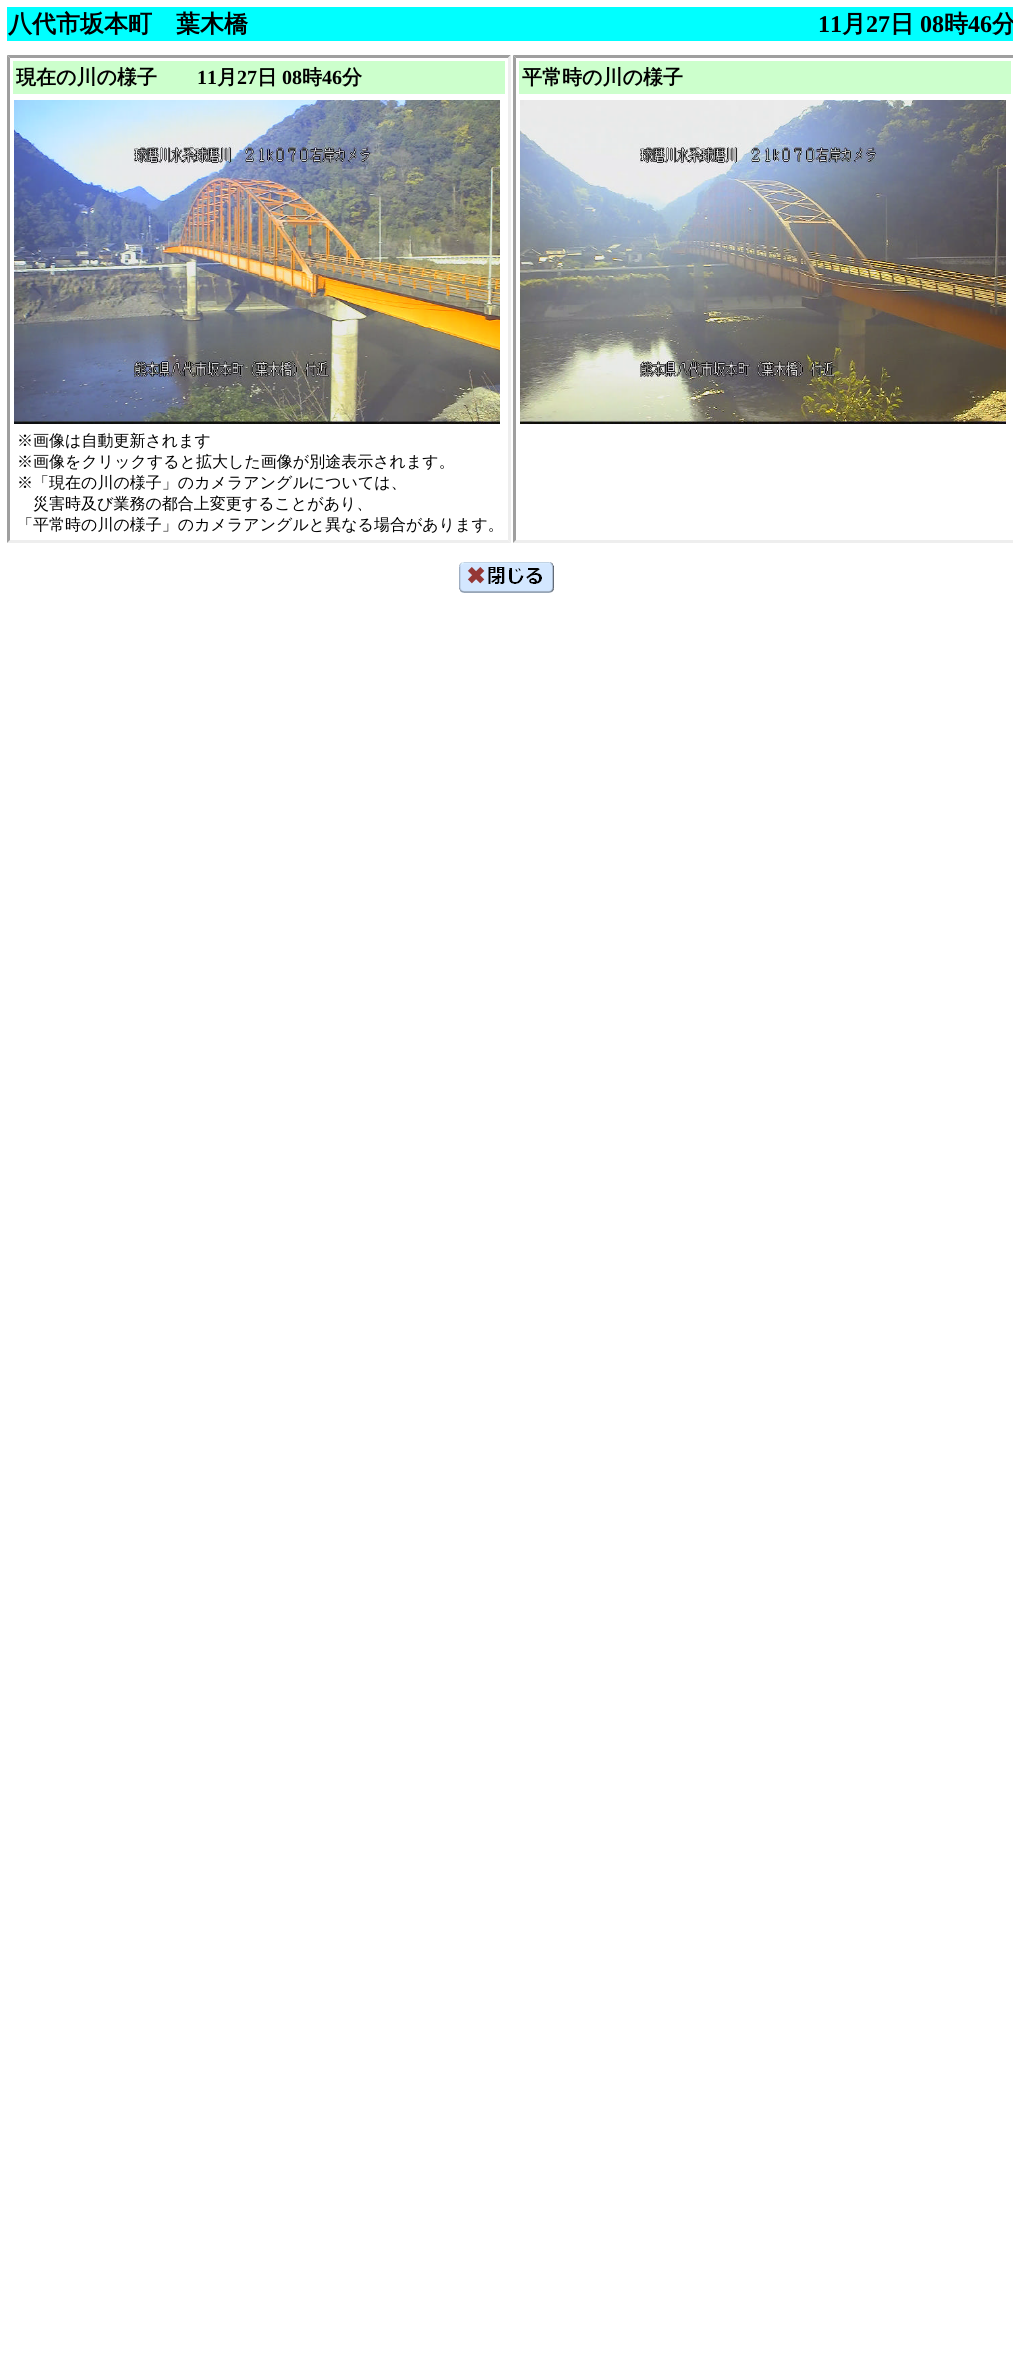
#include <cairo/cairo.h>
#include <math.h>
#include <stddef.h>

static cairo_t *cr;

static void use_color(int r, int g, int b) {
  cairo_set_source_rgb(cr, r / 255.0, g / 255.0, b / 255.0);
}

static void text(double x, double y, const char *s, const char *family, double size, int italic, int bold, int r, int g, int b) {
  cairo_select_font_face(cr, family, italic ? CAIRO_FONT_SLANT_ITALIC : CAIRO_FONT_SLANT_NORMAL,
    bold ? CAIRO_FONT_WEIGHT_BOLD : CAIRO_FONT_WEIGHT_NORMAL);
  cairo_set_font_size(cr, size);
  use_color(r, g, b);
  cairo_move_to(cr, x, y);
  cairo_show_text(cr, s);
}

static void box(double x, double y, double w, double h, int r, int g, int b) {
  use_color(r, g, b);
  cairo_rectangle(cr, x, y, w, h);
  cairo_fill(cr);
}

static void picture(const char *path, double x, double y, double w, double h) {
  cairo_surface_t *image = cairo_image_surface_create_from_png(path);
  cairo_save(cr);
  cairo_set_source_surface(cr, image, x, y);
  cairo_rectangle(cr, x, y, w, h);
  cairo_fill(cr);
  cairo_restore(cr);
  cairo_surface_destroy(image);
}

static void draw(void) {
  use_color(255, 255, 255);
  cairo_paint(cr);
  box(7, 7, 1006, 34, 0, 255, 255);
  use_color(159, 159, 159);
  cairo_new_path(cr);
  cairo_move_to(cr, 7, 55);
  cairo_line_to(cr, 511, 55);
  cairo_line_to(cr, 508, 58);
  cairo_line_to(cr, 10, 58);
  cairo_close_path(cr);
  cairo_fill(cr);
  use_color(238, 238, 238);
  cairo_new_path(cr);
  cairo_move_to(cr, 511, 55);
  cairo_line_to(cr, 511, 543);
  cairo_line_to(cr, 508, 540);
  cairo_line_to(cr, 508, 58);
  cairo_close_path(cr);
  cairo_fill(cr);
  cairo_new_path(cr);
  cairo_move_to(cr, 511, 543);
  cairo_line_to(cr, 7, 543);
  cairo_line_to(cr, 10, 540);
  cairo_line_to(cr, 508, 540);
  cairo_close_path(cr);
  cairo_fill(cr);
  use_color(159, 159, 159);
  cairo_new_path(cr);
  cairo_move_to(cr, 7, 543);
  cairo_line_to(cr, 7, 55);
  cairo_line_to(cr, 10, 58);
  cairo_line_to(cr, 10, 540);
  cairo_close_path(cr);
  cairo_fill(cr);
  box(13, 61, 492, 33, 204, 255, 204);
  picture("img_01.png", 14, 100, 486, 324);
  use_color(159, 159, 159);
  cairo_new_path(cr);
  cairo_move_to(cr, 513, 55);
  cairo_line_to(cr, 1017, 55);
  cairo_line_to(cr, 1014, 58);
  cairo_line_to(cr, 516, 58);
  cairo_close_path(cr);
  cairo_fill(cr);
  use_color(238, 238, 238);
  cairo_new_path(cr);
  cairo_move_to(cr, 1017, 543);
  cairo_line_to(cr, 513, 543);
  cairo_line_to(cr, 516, 540);
  cairo_line_to(cr, 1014, 540);
  cairo_close_path(cr);
  cairo_fill(cr);
  use_color(159, 159, 159);
  cairo_new_path(cr);
  cairo_move_to(cr, 513, 543);
  cairo_line_to(cr, 513, 55);
  cairo_line_to(cr, 516, 58);
  cairo_line_to(cr, 516, 540);
  cairo_close_path(cr);
  cairo_fill(cr);
  box(519, 61, 492, 33, 204, 255, 204);
  picture("img_02.png", 520, 100, 486, 324);
  picture("img_03.png", 459, 562, 95, 31);
  text(8, 32, "八代市坂本町　葉木橋", "WenQuanYi Zen Hei", 24, 0, 1, 0, 0, 0);
  text(818, 32, "11", "Liberation Serif", 24, 0, 1, 0, 0, 0);
  text(842, 32, "月", "WenQuanYi Zen Hei", 24, 0, 1, 0, 0, 0);
  text(866, 32, "27", "Liberation Serif", 24, 0, 1, 0, 0, 0);
  text(890, 32, "日", "WenQuanYi Zen Hei", 24, 0, 1, 0, 0, 0);
  text(920, 32, "08", "Liberation Serif", 24, 0, 1, 0, 0, 0);
  text(944, 32, "時", "WenQuanYi Zen Hei", 24, 0, 1, 0, 0, 0);
  text(968, 32, "46", "Liberation Serif", 24, 0, 1, 0, 0, 0);
  text(992, 32, "分", "WenQuanYi Zen Hei", 24, 0, 1, 0, 0, 0);
  text(16, 84, "現在の川の様子", "WenQuanYi Zen Hei", 20, 0, 1, 0, 0, 0);
  text(197, 84, "11", "Liberation Serif", 20, 0, 1, 0, 0, 0);
  text(217, 84, "月", "WenQuanYi Zen Hei", 20, 0, 1, 0, 0, 0);
  text(237, 84, "27", "Liberation Serif", 20, 0, 1, 0, 0, 0);
  text(257, 84, "日", "WenQuanYi Zen Hei", 20, 0, 1, 0, 0, 0);
  text(282, 84, "08", "Liberation Serif", 20, 0, 1, 0, 0, 0);
  text(302, 84, "時", "WenQuanYi Zen Hei", 20, 0, 1, 0, 0, 0);
  text(322, 84, "46", "Liberation Serif", 20, 0, 1, 0, 0, 0);
  text(342, 84, "分", "WenQuanYi Zen Hei", 20, 0, 1, 0, 0, 0);
  text(17, 446, "※画像は自動更新されます", "WenQuanYi Zen Hei Medium", 16, 0, 0, 0, 0, 0);
  text(17, 467, "※画像をクリックすると拡大した画像が別途表示されます。", "WenQuanYi Zen Hei Medium", 16, 0, 0, 0, 0, 0);
  text(17, 488, "※「現在の川の様子」のカメラアングルについては、", "WenQuanYi Zen Hei Medium", 16, 0, 0, 0, 0, 0);
  text(33, 509, "災害時及び業務の都合上変更することがあり、", "WenQuanYi Zen Hei Medium", 16, 0, 0, 0, 0, 0);
  text(17, 530, "「平常時の川の様子」のカメラアングルと異なる場合があります。", "WenQuanYi Zen Hei Medium", 16, 0, 0, 0, 0, 0);
  text(522, 84, "平常時の川の様子", "WenQuanYi Zen Hei", 20, 0, 1, 0, 0, 0);
}

int main(void) {
  cairo_surface_t *surface = cairo_image_surface_create(CAIRO_FORMAT_RGB24, 1013, 2367);
  cr = cairo_create(surface);
  cairo_font_options_t *options = cairo_font_options_create();
  cairo_font_options_set_hint_metrics(options, CAIRO_HINT_METRICS_OFF);
  cairo_font_options_set_hint_style(options, CAIRO_HINT_STYLE_NONE);
  cairo_set_font_options(cr, options);
  cairo_set_miter_limit(cr, 4);
  draw();
  cairo_surface_write_to_png(surface, "out.png");
  cairo_font_options_destroy(options);
  cairo_destroy(cr);
  cairo_surface_destroy(surface);
  return 0;
}
